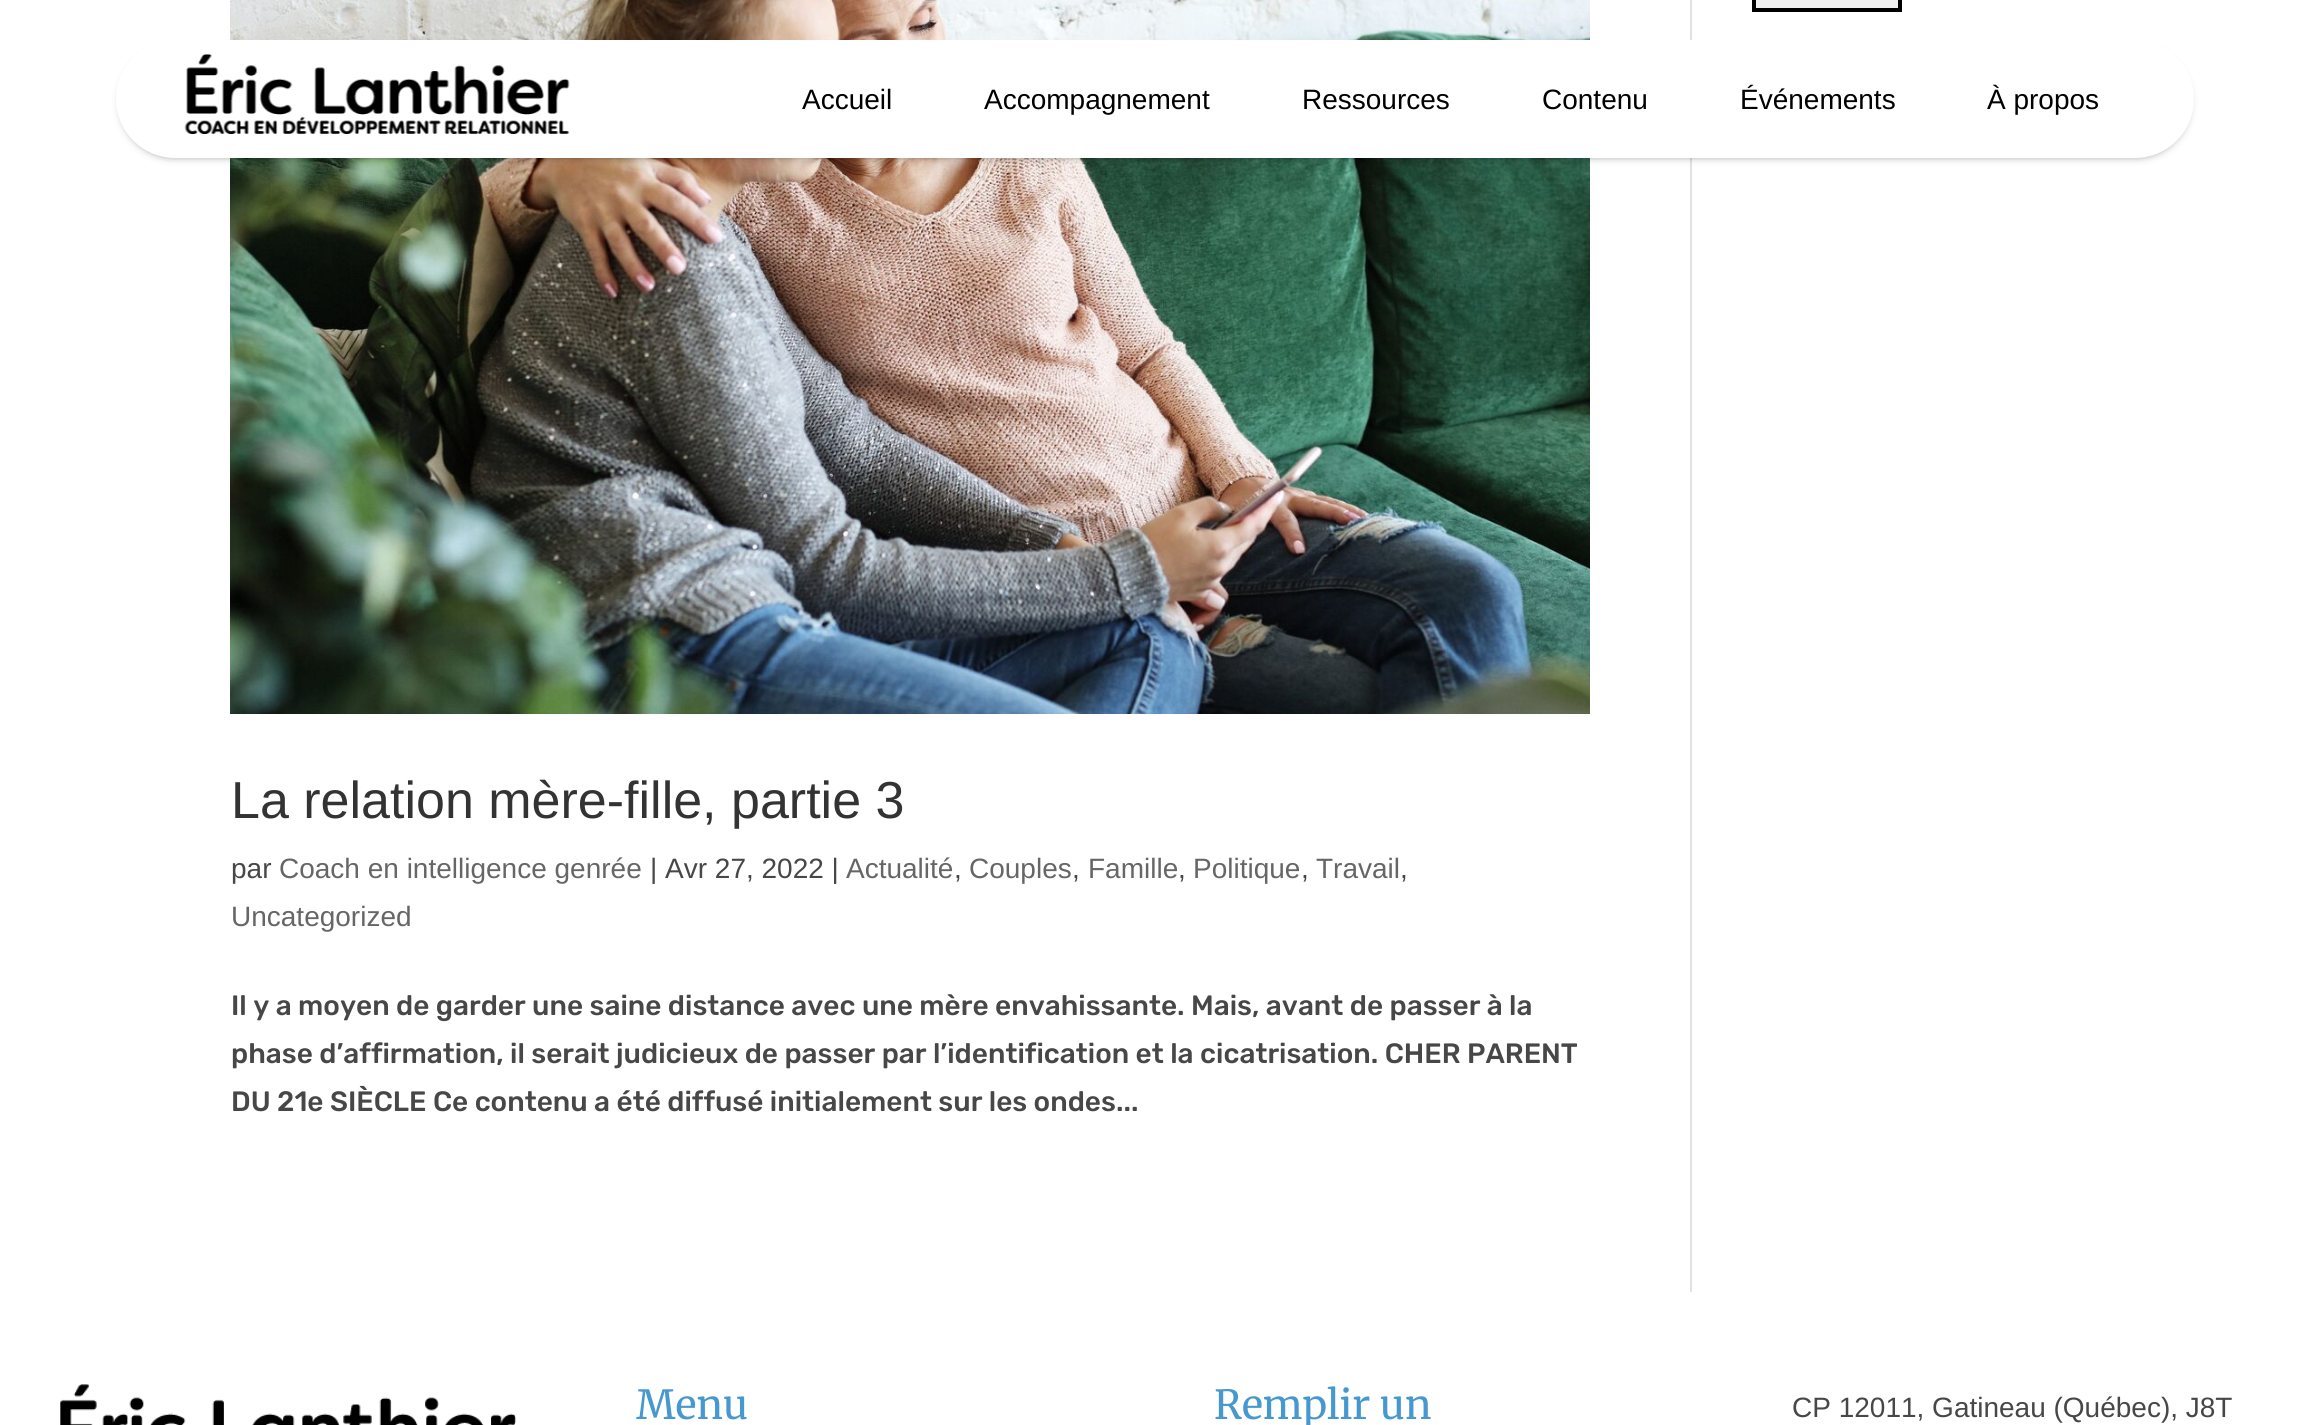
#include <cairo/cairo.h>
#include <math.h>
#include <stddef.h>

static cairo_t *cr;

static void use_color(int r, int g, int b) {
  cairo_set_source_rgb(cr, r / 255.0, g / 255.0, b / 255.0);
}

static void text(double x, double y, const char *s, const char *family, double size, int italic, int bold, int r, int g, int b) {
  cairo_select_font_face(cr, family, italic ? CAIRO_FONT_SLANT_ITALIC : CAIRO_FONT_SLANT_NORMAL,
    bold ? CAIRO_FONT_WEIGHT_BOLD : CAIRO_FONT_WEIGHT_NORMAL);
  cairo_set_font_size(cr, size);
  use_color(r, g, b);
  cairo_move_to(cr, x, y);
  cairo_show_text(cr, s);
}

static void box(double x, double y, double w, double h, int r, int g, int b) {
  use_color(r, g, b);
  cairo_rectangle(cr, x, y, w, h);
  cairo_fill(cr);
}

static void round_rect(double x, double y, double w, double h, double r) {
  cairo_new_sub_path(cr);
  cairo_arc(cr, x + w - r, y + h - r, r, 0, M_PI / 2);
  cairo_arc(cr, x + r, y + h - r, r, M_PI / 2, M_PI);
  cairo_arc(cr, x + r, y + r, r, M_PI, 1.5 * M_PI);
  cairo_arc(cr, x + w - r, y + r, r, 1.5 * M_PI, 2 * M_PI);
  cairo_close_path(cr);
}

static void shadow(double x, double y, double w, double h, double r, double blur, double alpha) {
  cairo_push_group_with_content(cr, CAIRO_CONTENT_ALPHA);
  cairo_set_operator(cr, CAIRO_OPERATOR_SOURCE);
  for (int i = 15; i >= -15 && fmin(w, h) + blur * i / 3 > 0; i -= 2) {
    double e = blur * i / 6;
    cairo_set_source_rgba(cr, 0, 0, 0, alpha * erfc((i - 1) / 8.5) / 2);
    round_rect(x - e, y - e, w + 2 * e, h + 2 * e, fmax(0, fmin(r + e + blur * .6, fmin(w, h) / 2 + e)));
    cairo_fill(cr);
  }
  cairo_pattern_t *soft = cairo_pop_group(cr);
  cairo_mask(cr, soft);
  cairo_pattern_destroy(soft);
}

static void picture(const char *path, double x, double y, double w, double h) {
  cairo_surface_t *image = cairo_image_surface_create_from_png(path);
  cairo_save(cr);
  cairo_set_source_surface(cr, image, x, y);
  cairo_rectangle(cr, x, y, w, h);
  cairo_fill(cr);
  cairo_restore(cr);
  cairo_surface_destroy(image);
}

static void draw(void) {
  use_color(255, 255, 255);
  cairo_paint(cr);
  picture("img_02.png", 230, 0, 1360, 714);
  box(1690, 0, 2, 1292, 226, 226, 226);
  use_color(0, 0, 0);
  shadow(124, 52, 2062, 102, 51, 5, 0.8);
  use_color(255, 255, 255);
  round_rect(116, 40, 2078, 118, 59);
  cairo_fill(cr);
  picture("img_01.png", 184, 54, 386, 80);
  use_color(239, 239, 239);
  cairo_rectangle(cr, 1754, -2, 146, 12);
  cairo_fill_preserve(cr);
  use_color(0, 0, 0);
  cairo_set_line_width(cr, 4);
  cairo_stroke(cr);
  picture("img_03.png", 60, 1384, 456, 41);
  text(802, 109, "Accueil", "Liberation Sans", 28, 0, 0, 0, 0, 0);
  text(984, 109, "Accompagnement", "Liberation Sans", 28, 0, 0, 0, 0, 0);
  text(1302, 109, "Ressources", "Liberation Sans", 28, 0, 0, 0, 0, 0);
  text(1542, 109, "Contenu", "Liberation Sans", 28, 0, 0, 0, 0, 0);
  text(1740, 109, "Événements", "Liberation Sans", 28, 0, 0, 0, 0, 0);
  text(1987, 109, "À propos", "Liberation Sans", 28, 0, 0, 0, 0, 0);
  text(231, 818, "La relation mère-fille, partie 3", "Liberation Sans", 52, 0, 0, 51, 51, 51);
  text(231, 878, "par", "Liberation Sans", 28, 0, 0, 71, 71, 71);
  text(279, 878, "Coach en intelligence genrée", "Liberation Sans", 28, 0, 0, 102, 102, 102);
  text(650, 878, "| Avr 27, 2022 |", "Liberation Sans", 28, 0, 0, 71, 71, 71);
  text(846, 878, "Actualité", "Liberation Sans", 28, 0, 0, 102, 102, 102);
  text(954, 878, ",", "Liberation Sans", 28, 0, 0, 71, 71, 71);
  text(969, 878, "Couples", "Liberation Sans", 28, 0, 0, 102, 102, 102);
  text(1072, 878, ",", "Liberation Sans", 28, 0, 0, 71, 71, 71);
  text(1088, 878, "Famille", "Liberation Sans", 28, 0, 0, 102, 102, 102);
  text(1178, 878, ",", "Liberation Sans", 28, 0, 0, 71, 71, 71);
  text(1193, 878, "Politique", "Liberation Sans", 28, 0, 0, 102, 102, 102);
  text(1301, 878, ",", "Liberation Sans", 28, 0, 0, 71, 71, 71);
  text(1316, 878, "Travail", "Liberation Sans", 28, 0, 0, 102, 102, 102);
  text(1400, 878, ",", "Liberation Sans", 28, 0, 0, 71, 71, 71);
  text(231, 926, "Uncategorized", "Liberation Sans", 28, 0, 0, 102, 102, 102);
  text(231, 1015, "Il y a moyen de garder une saine distance avec une mère envahissante. Mais, avant de passer à la", "Rubik Medium", 28, 0, 0, 71, 71, 71);
  text(231, 1063, "phase d’affirmation, il serait judicieux de passer par l’identification et la cicatrisation. CHER PARENT", "Rubik Medium", 28, 0, 0, 71, 71, 71);
  text(231, 1111, "DU 21e SIÈCLE Ce contenu a été diffusé initialement sur les ondes...", "Rubik Medium", 28, 0, 0, 71, 71, 71);
  text(636, 1419, "Menu", "Merriweather", 40, 0, 0, 71, 152, 206);
  text(1214, 1419, "Remplir un", "Merriweather", 40, 0, 0, 71, 152, 206);
  text(1792, 1417, "CP 12011, Gatineau (Québec), J8T", "Liberation Sans", 28, 0, 0, 71, 71, 71);
}

int main(void) {
  cairo_surface_t *surface = cairo_image_surface_create(CAIRO_FORMAT_RGB24, 2307, 1425);
  cr = cairo_create(surface);
  cairo_font_options_t *options = cairo_font_options_create();
  cairo_font_options_set_hint_metrics(options, CAIRO_HINT_METRICS_OFF);
  cairo_font_options_set_hint_style(options, CAIRO_HINT_STYLE_NONE);
  cairo_set_font_options(cr, options);
  cairo_set_miter_limit(cr, 4);
  draw();
  cairo_surface_write_to_png(surface, "out.png");
  cairo_font_options_destroy(options);
  cairo_destroy(cr);
  cairo_surface_destroy(surface);
  return 0;
}
